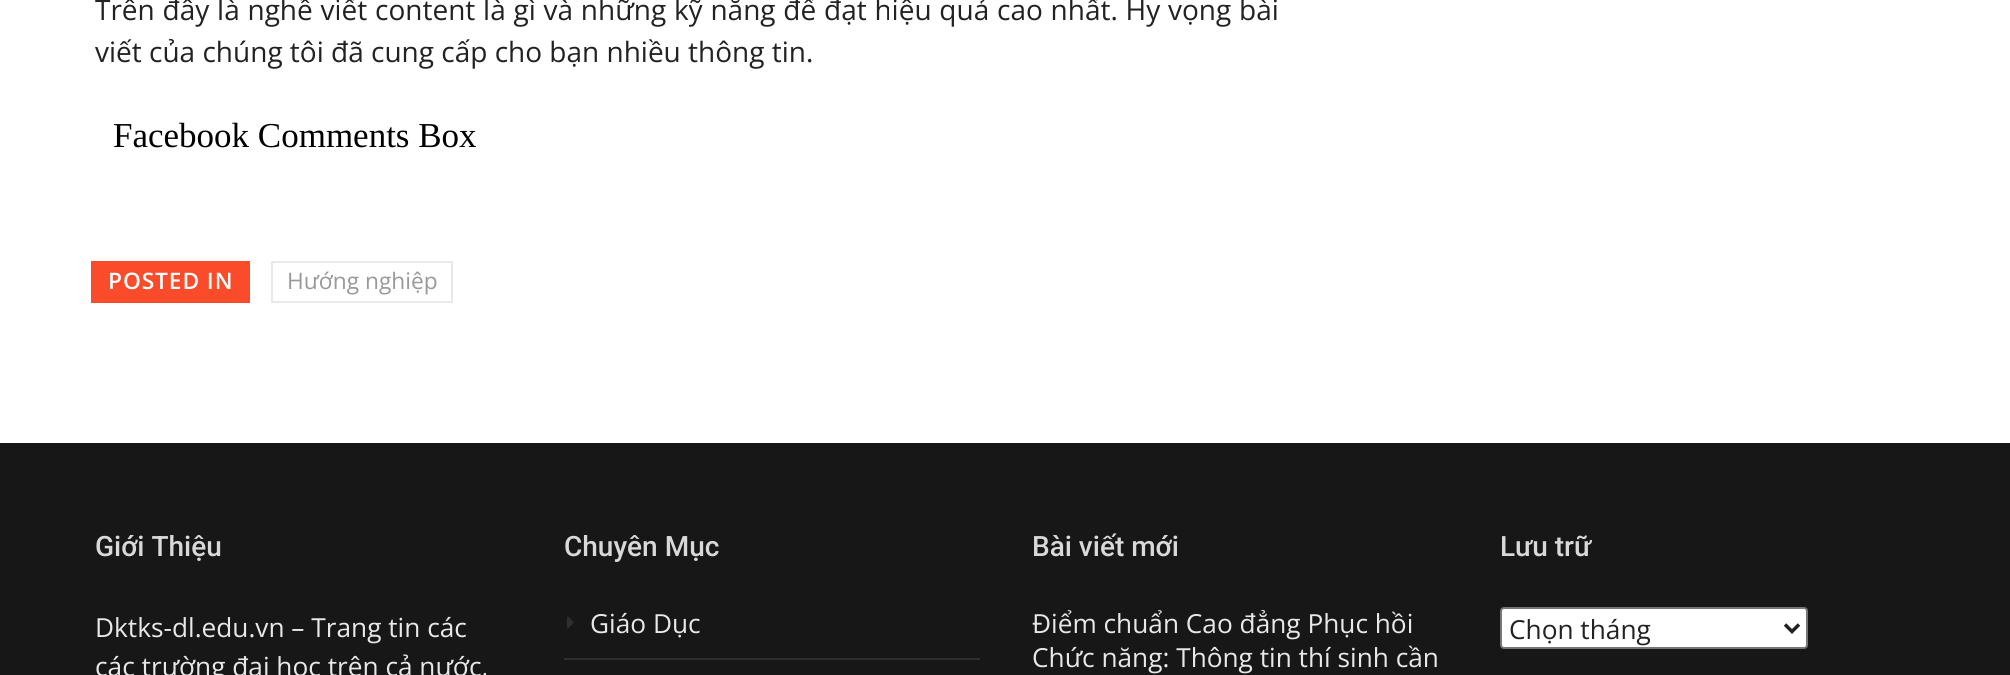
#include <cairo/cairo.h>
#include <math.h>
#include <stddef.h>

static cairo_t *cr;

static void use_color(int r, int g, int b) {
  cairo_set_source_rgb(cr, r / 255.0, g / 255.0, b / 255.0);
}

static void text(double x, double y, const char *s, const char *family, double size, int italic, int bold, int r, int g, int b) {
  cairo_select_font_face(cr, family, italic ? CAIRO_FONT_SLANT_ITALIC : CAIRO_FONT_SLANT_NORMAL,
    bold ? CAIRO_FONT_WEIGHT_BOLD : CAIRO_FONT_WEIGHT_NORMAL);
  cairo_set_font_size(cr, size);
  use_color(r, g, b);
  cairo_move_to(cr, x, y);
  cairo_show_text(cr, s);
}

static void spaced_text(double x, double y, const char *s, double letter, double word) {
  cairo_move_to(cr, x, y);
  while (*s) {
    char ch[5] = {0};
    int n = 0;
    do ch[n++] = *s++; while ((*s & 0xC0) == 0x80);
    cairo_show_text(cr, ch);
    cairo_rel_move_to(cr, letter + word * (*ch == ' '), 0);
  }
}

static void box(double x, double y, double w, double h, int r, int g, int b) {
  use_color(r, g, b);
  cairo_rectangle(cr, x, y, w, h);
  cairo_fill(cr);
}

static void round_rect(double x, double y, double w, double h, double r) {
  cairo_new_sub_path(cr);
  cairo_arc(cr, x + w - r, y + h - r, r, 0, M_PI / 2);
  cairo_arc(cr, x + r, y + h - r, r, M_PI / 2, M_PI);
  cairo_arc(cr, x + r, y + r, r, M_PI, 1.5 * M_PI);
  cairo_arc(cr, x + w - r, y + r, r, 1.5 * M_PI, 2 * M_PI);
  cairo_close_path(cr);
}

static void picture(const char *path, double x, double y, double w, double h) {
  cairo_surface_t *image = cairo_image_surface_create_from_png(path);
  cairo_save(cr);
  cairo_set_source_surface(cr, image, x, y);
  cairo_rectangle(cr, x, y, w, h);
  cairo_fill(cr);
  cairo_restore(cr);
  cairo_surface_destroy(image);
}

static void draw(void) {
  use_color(255, 255, 255);
  cairo_paint(cr);
  box(91, 261, 159, 42, 250, 76, 42);
  cairo_rectangle(cr, 272, 262, 180, 40);
  use_color(233, 233, 233);
  cairo_stroke(cr);
  box(0, 443, 2010, 232, 23, 23, 23);
  picture("img_01.png", 567, 616, 7, 13);
  box(564, 658, 416, 2, 46, 46, 46);
  use_color(255, 255, 255);
  round_rect(1501, 608, 306, 40, 3);
  cairo_fill_preserve(cr);
  use_color(118, 118, 118);
  cairo_stroke(cr);
  cairo_new_path(cr);
  cairo_move_to(cr, 1785, 624.5);
  cairo_line_to(cr, 1792, 631.5);
  cairo_line_to(cr, 1799, 624.5);
  use_color(34, 34, 34);
  cairo_set_line_width(cr, 3.5);
  cairo_stroke(cr);
  cairo_select_font_face(cr, "Open Sans", CAIRO_FONT_SLANT_NORMAL, CAIRO_FONT_WEIGHT_NORMAL);
  cairo_set_font_size(cr, 28);
  spaced_text(95, 20, "Trên đây là nghề viết content là gì và những kỹ năng để đạt hiệu quả cao nhất. Hy vọng bài", 0, 0.5);
  text(95, 62, "viết của chúng tôi đã cung cấp cho bạn nhiều thông tin.", "Open Sans", 28, 0, 0, 34, 34, 34);
  text(113, 147, "Facebook Comments Box", "Liberation Serif", 35, 0, 0, 0, 0, 0);
  cairo_select_font_face(cr, "Open Sans SemiBold", CAIRO_FONT_SLANT_NORMAL, CAIRO_FONT_WEIGHT_NORMAL);
  cairo_set_font_size(cr, 22.75);
  use_color(255, 255, 255);
  spaced_text(108, 289, "POSTED IN", 0.9, 0);
  text(287, 289, "Hướng nghiệp", "Open Sans", 22.75, 0, 0, 153, 153, 153);
  text(95, 556, "Giới Thiệu", "Roboto Medium", 28, 0, 0, 217, 217, 217);
  text(95, 637, "Dktks-dl.edu.vn – Trang tin các", "Open Sans", 26.25, 0, 0, 232, 232, 232);
  text(95, 676, "các trường đại học trên cả nước,", "Open Sans", 26.25, 0, 0, 232, 232, 232);
  text(564, 556, "Chuyên Mục", "Roboto Medium", 28, 0, 0, 217, 217, 217);
  text(590, 633, "Giáo Dục", "Open Sans", 26.25, 0, 0, 232, 232, 232);
  text(1032, 556, "Bài viết mới", "Roboto Medium", 28, 0, 0, 217, 217, 217);
  text(1032, 633, "Điểm chuẩn Cao đẳng Phục hồi", "Open Sans", 26.25, 0, 0, 232, 232, 232);
  text(1032, 667, "Chức năng: Thông tin thí sinh cần", "Open Sans", 26.25, 0, 0, 232, 232, 232);
  text(1500, 556, "Lưu trữ", "Roboto Medium", 28, 0, 0, 217, 217, 217);
  text(1509, 639, "Chọn tháng", "Open Sans", 26.25, 0, 0, 34, 34, 34);
}

int main(void) {
  cairo_surface_t *surface = cairo_image_surface_create(CAIRO_FORMAT_RGB24, 2010, 675);
  cr = cairo_create(surface);
  cairo_font_options_t *options = cairo_font_options_create();
  cairo_font_options_set_hint_metrics(options, CAIRO_HINT_METRICS_OFF);
  cairo_font_options_set_hint_style(options, CAIRO_HINT_STYLE_NONE);
  cairo_set_font_options(cr, options);
  cairo_set_miter_limit(cr, 4);
  draw();
  cairo_surface_write_to_png(surface, "out.png");
  cairo_font_options_destroy(options);
  cairo_destroy(cr);
  cairo_surface_destroy(surface);
  return 0;
}
